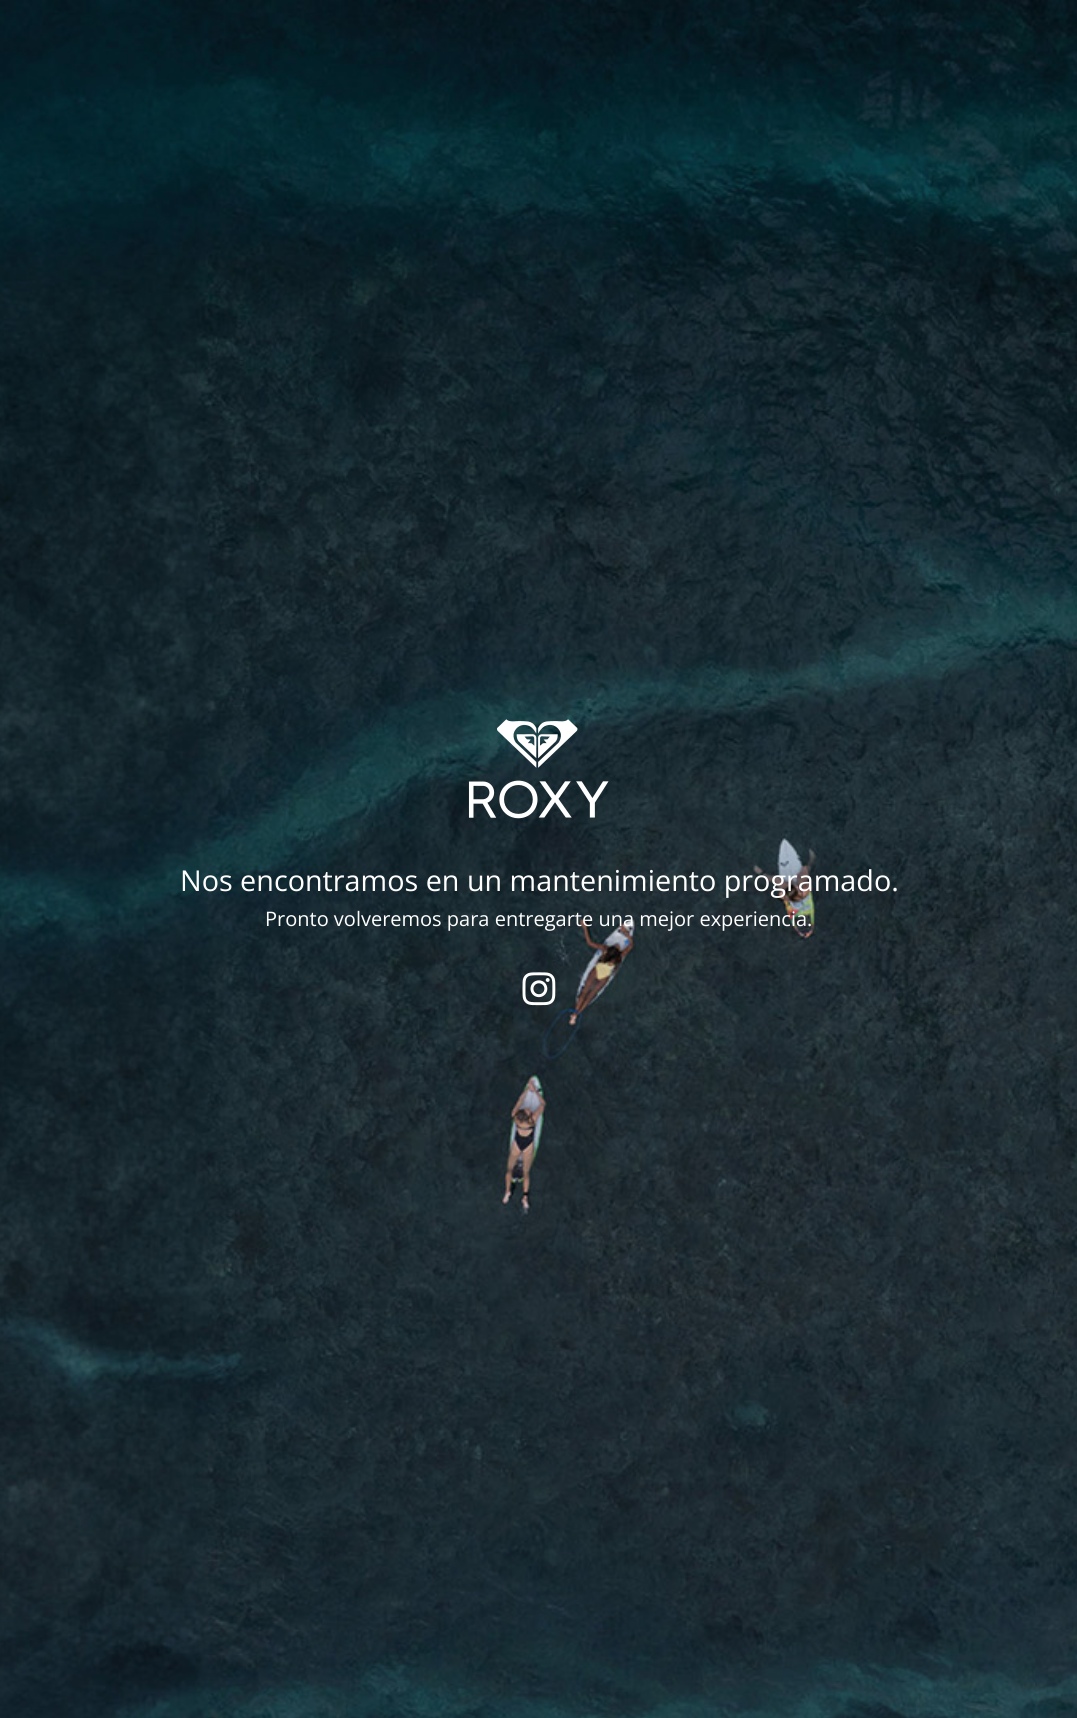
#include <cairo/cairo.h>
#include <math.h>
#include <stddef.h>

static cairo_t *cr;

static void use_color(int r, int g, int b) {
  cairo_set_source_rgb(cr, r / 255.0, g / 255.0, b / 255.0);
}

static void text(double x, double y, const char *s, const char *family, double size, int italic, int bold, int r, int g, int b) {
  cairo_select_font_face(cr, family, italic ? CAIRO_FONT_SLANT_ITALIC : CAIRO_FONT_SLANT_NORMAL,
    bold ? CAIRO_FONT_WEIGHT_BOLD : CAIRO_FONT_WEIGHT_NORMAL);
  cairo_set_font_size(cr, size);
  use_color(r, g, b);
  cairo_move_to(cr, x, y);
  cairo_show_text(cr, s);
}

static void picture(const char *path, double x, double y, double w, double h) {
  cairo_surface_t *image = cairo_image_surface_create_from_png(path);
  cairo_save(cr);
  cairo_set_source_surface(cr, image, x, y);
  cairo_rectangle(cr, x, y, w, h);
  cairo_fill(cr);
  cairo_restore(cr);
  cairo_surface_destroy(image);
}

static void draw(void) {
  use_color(255, 255, 255);
  cairo_paint(cr);
  picture("img_01.png", 0, 0, 1077, 1718);
  picture("img_02.png", 468, 719, 141, 100);
  picture("img_03.png", 522, 972, 34, 34);
  text(180, 891, "Nos encontramos en un mantenimiento programado.", "Open Sans", 28.75, 0, 0, 255, 255, 255);
  text(265, 926, "Pronto volveremos para entregarte una mejor experiencia.", "Open Sans", 20, 0, 0, 255, 255, 255);
}

int main(void) {
  cairo_surface_t *surface = cairo_image_surface_create(CAIRO_FORMAT_RGB24, 1077, 1718);
  cr = cairo_create(surface);
  cairo_font_options_t *options = cairo_font_options_create();
  cairo_font_options_set_hint_metrics(options, CAIRO_HINT_METRICS_OFF);
  cairo_font_options_set_hint_style(options, CAIRO_HINT_STYLE_NONE);
  cairo_set_font_options(cr, options);
  cairo_set_miter_limit(cr, 4);
  draw();
  cairo_surface_write_to_png(surface, "out.png");
  cairo_font_options_destroy(options);
  cairo_destroy(cr);
  cairo_surface_destroy(surface);
  return 0;
}
